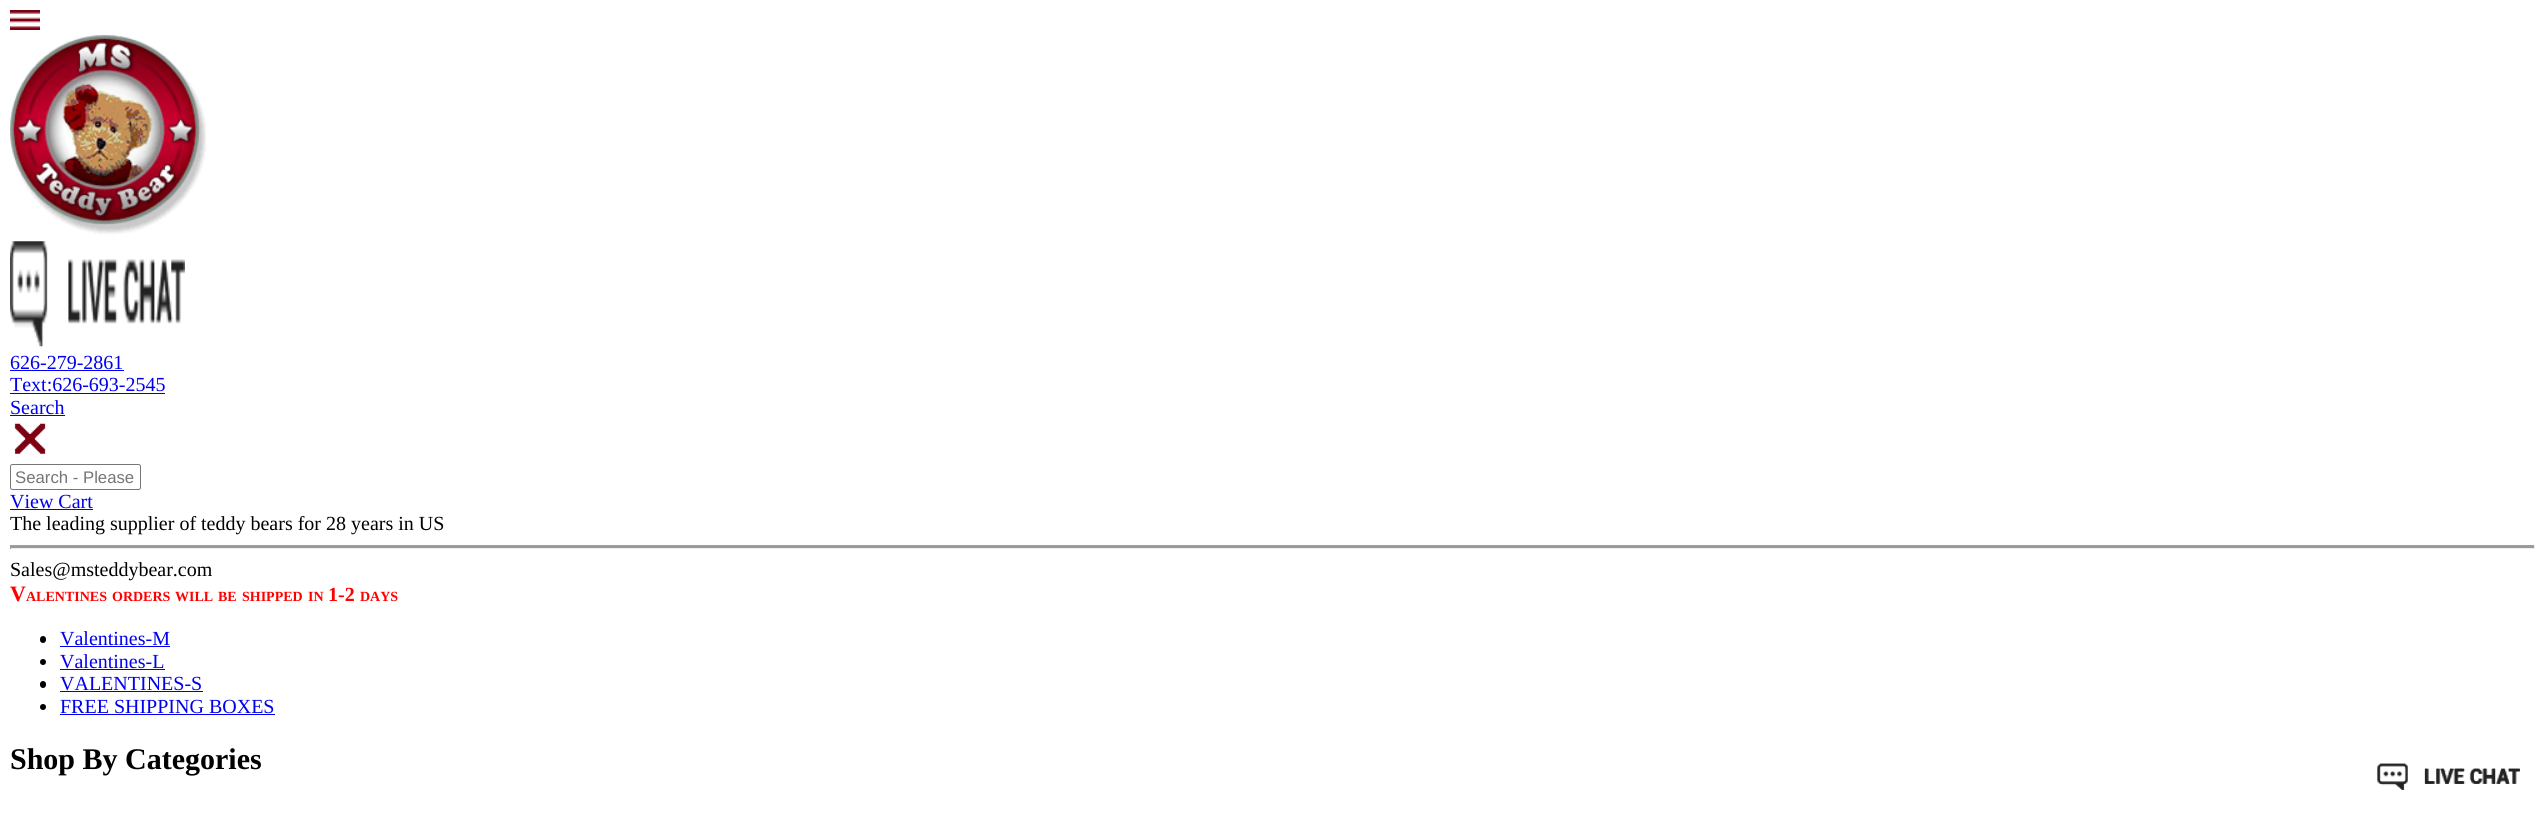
#include <cairo/cairo.h>
#include <math.h>
#include <stddef.h>

static cairo_t *cr;

static void use_color(int r, int g, int b) {
  cairo_set_source_rgb(cr, r / 255.0, g / 255.0, b / 255.0);
}

static void text(double x, double y, const char *s, const char *family, double size, int italic, int bold, int r, int g, int b) {
  cairo_select_font_face(cr, family, italic ? CAIRO_FONT_SLANT_ITALIC : CAIRO_FONT_SLANT_NORMAL,
    bold ? CAIRO_FONT_WEIGHT_BOLD : CAIRO_FONT_WEIGHT_NORMAL);
  cairo_set_font_size(cr, size);
  use_color(r, g, b);
  cairo_move_to(cr, x, y);
  cairo_show_text(cr, s);
}

static void box(double x, double y, double w, double h, int r, int g, int b) {
  use_color(r, g, b);
  cairo_rectangle(cr, x, y, w, h);
  cairo_fill(cr);
}

static void round_rect(double x, double y, double w, double h, double r) {
  cairo_new_sub_path(cr);
  cairo_arc(cr, x + w - r, y + h - r, r, 0, M_PI / 2);
  cairo_arc(cr, x + r, y + h - r, r, M_PI / 2, M_PI);
  cairo_arc(cr, x + r, y + r, r, M_PI, 1.5 * M_PI);
  cairo_arc(cr, x + w - r, y + r, r, 1.5 * M_PI, 2 * M_PI);
  cairo_close_path(cr);
}

static void picture(const char *path, double x, double y, double w, double h) {
  cairo_surface_t *image = cairo_image_surface_create_from_png(path);
  cairo_save(cr);
  cairo_set_source_surface(cr, image, x, y);
  cairo_rectangle(cr, x, y, w, h);
  cairo_fill(cr);
  cairo_restore(cr);
  cairo_surface_destroy(image);
}

static void draw(void) {
  use_color(255, 255, 255);
  cairo_paint(cr);
  picture("img_01.png", 10, 10, 30, 20);
  picture("img_02.png", 10, 35, 196, 200);
  picture("img_03.png", 10, 241, 175, 106);
  picture("img_04.png", 2377, 763, 143, 27);
  picture("img_05.png", 2377, 763, 143, 27);
  box(10, 370, 114, 1, 0, 0, 238);
  box(10, 393, 155, 1, 0, 0, 238);
  box(10, 415, 55, 1, 0, 0, 238);
  picture("img_06.png", 14, 423, 32, 31);
  round_rect(10.5, 464.5, 130, 25, 2);
  use_color(118, 118, 118);
  cairo_set_line_width(cr, 1);
  cairo_stroke(cr);
  box(10, 509, 83, 1, 0, 0, 238);
  box(10, 546, 2525, 2, 153, 153, 153);
  box(10, 545, 2525, 1, 159, 159, 159);
  box(2534, 545, 1, 4, 238, 238, 238);
  box(10, 548, 2525, 1, 238, 238, 238);
  box(10, 545, 1, 4, 159, 159, 159);
  use_color(0, 0, 0);
  round_rect(40, 636, 6, 7, 3);
  cairo_fill(cr);
  box(60, 646, 110, 1, 0, 0, 238);
  use_color(0, 0, 0);
  cairo_arc(cr, 43, 662, 3, 0, 2 * M_PI);
  cairo_fill(cr);
  box(60, 669, 105, 1, 0, 0, 238);
  use_color(0, 0, 0);
  round_rect(40, 681, 6, 7, 3);
  cairo_fill(cr);
  box(60, 691, 143, 1, 0, 0, 238);
  use_color(0, 0, 0);
  cairo_arc(cr, 43, 707, 3, 0, 2 * M_PI);
  cairo_fill(cr);
  box(60, 714, 215, 1, 0, 0, 238);
  text(10, 369, "626-279-2861", "Liberation Serif", 20, 0, 0, 0, 0, 238);
  text(10, 391, "Text:626-693-2545", "Liberation Serif", 20, 0, 0, 0, 0, 238);
  text(10, 414, "Search", "Liberation Serif", 20, 0, 0, 0, 0, 238);
  text(15, 483, "Search - Please", "Liberation Sans", 16.75, 0, 0, 117, 117, 117);
  text(10, 508, "View Cart", "Liberation Serif", 20, 0, 0, 0, 0, 238);
  text(10, 530, "The leading supplier of teddy bears for 28 years in US", "Liberation Serif", 20, 0, 0, 0, 0, 0);
  text(10, 576, "Sales@msteddybear.com", "Liberation Serif", 20, 0, 0, 0, 0, 0);
  text(10, 601, "V", "Liberation Serif", 22, 0, 1, 255, 0, 0);
  text(26, 601, "ALENTINES", "Liberation Serif", 14, 0, 1, 255, 0, 0);
  text(112, 601, "ORDERS", "Liberation Serif", 14, 0, 1, 255, 0, 0);
  text(175, 601, "WILL", "Liberation Serif", 14, 0, 1, 255, 0, 0);
  text(218, 601, "BE", "Liberation Serif", 14, 0, 1, 255, 0, 0);
  text(242, 601, "SHIPPED", "Liberation Serif", 14, 0, 1, 255, 0, 0);
  text(308, 601, "IN", "Liberation Serif", 14, 0, 1, 255, 0, 0);
  text(328, 601, "1-2", "Liberation Serif", 20, 0, 1, 255, 0, 0);
  text(360, 601, "DAYS", "Liberation Serif", 14, 0, 1, 255, 0, 0);
  text(60, 645, "Valentines-M", "Liberation Serif", 20, 0, 0, 0, 0, 238);
  text(60, 668, "Valentines-L", "Liberation Serif", 20, 0, 0, 0, 0, 238);
  text(60, 690, "VALENTINES-S", "Liberation Serif", 20, 0, 0, 0, 0, 238);
  text(60, 713, "FREE SHIPPING BOXES", "Liberation Serif", 20, 0, 0, 0, 0, 238);
  text(10, 769, "Shop By Categories", "Liberation Serif", 30, 0, 1, 0, 0, 0);
}

int main(void) {
  cairo_surface_t *surface = cairo_image_surface_create(CAIRO_FORMAT_RGB24, 2545, 814);
  cr = cairo_create(surface);
  cairo_font_options_t *options = cairo_font_options_create();
  cairo_font_options_set_hint_metrics(options, CAIRO_HINT_METRICS_OFF);
  cairo_font_options_set_hint_style(options, CAIRO_HINT_STYLE_NONE);
  cairo_set_font_options(cr, options);
  cairo_set_miter_limit(cr, 4);
  draw();
  cairo_surface_write_to_png(surface, "out.png");
  cairo_font_options_destroy(options);
  cairo_destroy(cr);
  cairo_surface_destroy(surface);
  return 0;
}
